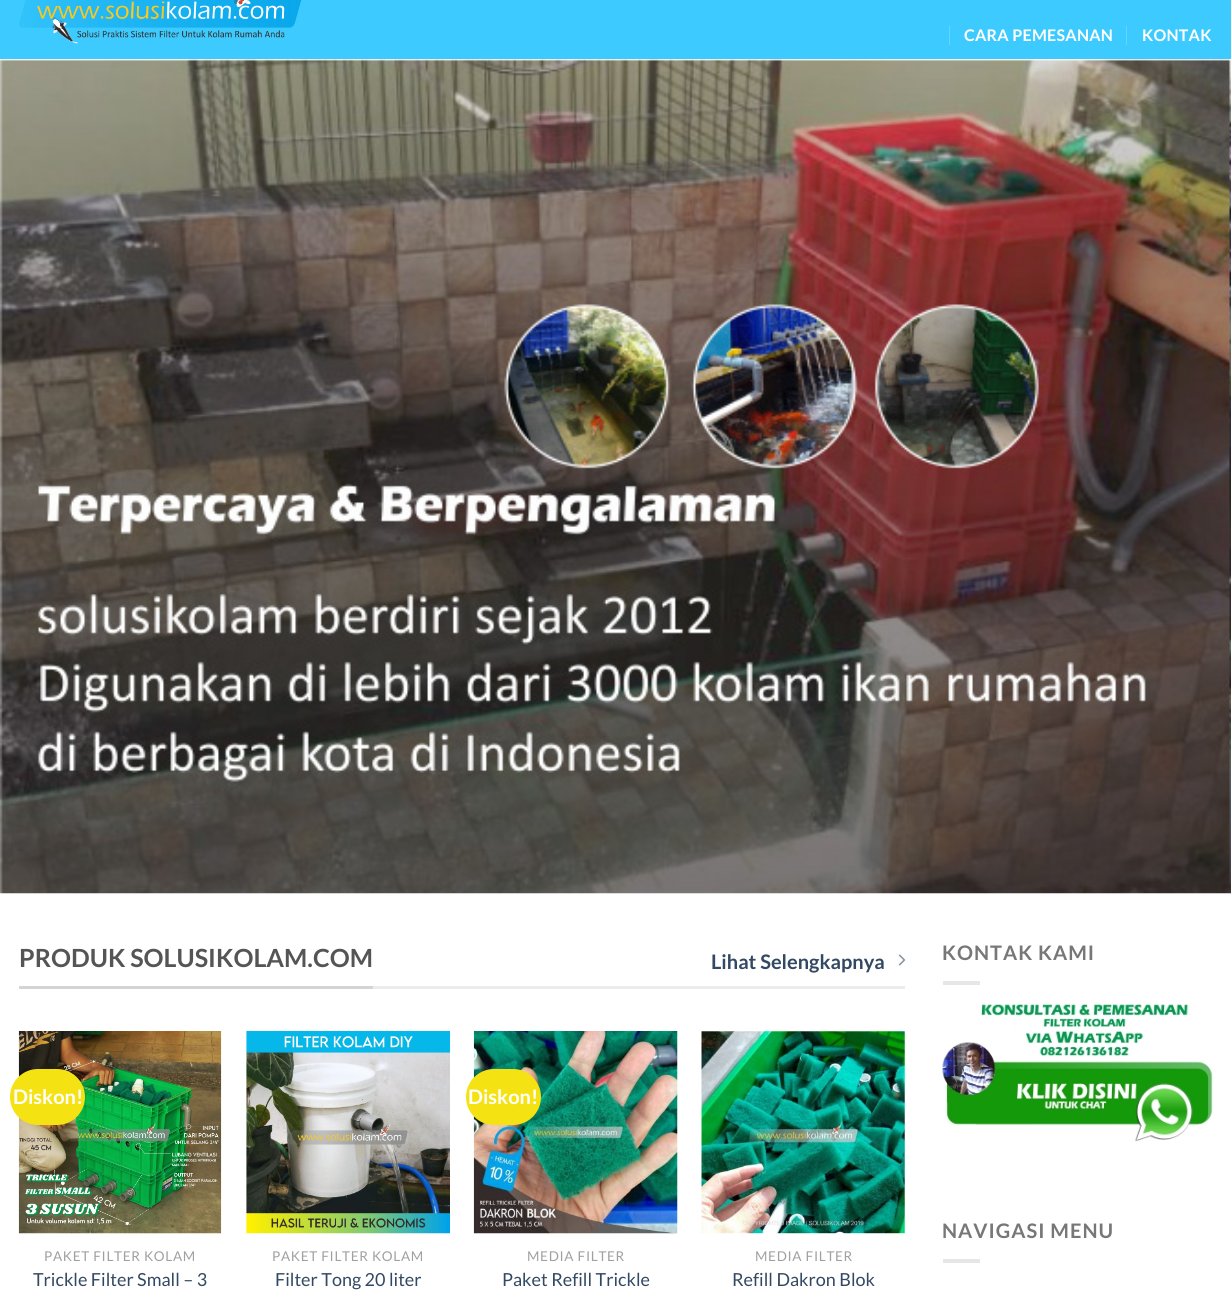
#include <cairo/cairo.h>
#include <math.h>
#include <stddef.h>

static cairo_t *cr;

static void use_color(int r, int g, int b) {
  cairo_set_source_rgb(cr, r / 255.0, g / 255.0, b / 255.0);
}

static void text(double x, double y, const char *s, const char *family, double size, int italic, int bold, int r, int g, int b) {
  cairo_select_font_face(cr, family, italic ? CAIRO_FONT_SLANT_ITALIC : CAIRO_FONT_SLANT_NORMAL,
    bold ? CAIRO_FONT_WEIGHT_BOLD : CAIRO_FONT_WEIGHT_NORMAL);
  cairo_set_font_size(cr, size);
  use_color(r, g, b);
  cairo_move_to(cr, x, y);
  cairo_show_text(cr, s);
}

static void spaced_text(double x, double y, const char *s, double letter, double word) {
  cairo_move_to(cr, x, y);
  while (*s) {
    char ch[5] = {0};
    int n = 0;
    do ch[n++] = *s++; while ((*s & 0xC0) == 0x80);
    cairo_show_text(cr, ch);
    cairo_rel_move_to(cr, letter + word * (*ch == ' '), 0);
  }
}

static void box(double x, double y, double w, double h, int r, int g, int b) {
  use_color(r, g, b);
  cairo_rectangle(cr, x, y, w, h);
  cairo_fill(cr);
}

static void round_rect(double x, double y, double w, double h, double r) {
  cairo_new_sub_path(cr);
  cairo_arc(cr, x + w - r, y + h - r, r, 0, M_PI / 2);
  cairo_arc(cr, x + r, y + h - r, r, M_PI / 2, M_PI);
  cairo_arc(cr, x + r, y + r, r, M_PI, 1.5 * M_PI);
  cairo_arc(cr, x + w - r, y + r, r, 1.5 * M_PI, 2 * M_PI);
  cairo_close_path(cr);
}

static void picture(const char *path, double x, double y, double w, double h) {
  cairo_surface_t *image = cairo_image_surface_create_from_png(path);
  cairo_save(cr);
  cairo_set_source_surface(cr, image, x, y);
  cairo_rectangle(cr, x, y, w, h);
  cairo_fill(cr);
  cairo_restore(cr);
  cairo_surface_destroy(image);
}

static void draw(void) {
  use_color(255, 255, 255);
  cairo_paint(cr);
  picture("img_02.png", 0, 58, 1231, 836);
  cairo_set_source_rgba(cr, 0.157, 0.773, 1, 0.9);
  cairo_rectangle(cr, 0, 0, 1231, 59);
  cairo_fill(cr);
  picture("img_01.png", 19, 0, 283, 44);
  box(949, 26, 1, 19, 100, 213, 255);
  box(1126, 26, 1, 19, 100, 213, 255);
  box(373, 986, 532, 3, 236, 236, 236);
  box(19, 986, 354, 3, 212, 212, 212);
  picture("img_03.png", 898, 954, 8, 12);
  picture("img_04.png", 18, 1031, 204, 203);
  use_color(245, 226, 19);
  round_rect(10, 1069, 75, 56, 28);
  cairo_fill(cr);
  picture("img_05.png", 246, 1031, 204, 203);
  picture("img_06.png", 473, 1031, 205, 203);
  round_rect(466, 1069, 75, 56, 28);
  cairo_fill(cr);
  picture("img_07.png", 701, 1031, 204, 203);
  box(943, 981, 37, 4, 230, 230, 230);
  picture("img_08.png", 942, 1004, 271, 138);
  box(943, 1259, 37, 4, 230, 230, 230);
  cairo_select_font_face(cr, "Lato", CAIRO_FONT_SLANT_NORMAL, CAIRO_FONT_WEIGHT_BOLD);
  cairo_set_font_size(cr, 16);
  use_color(255, 255, 255);
  spaced_text(964, 41, "CARA PEMESANAN", 0.25, 0);
  spaced_text(1142, 41, "KONTAK", 0.25, 0);
  text(19, 967, "PRODUK SOLUSIKOLAM.COM", "Lato", 25, 0, 1, 85, 85, 85);
  text(711, 969, "Lihat Selengkapnya", "Lato", 20, 0, 1, 51, 72, 98);
  text(13, 1104, "Diskon!", "Lato", 20, 0, 1, 255, 255, 255);
  cairo_select_font_face(cr, "Lato", CAIRO_FONT_SLANT_NORMAL, CAIRO_FONT_WEIGHT_NORMAL);
  cairo_set_font_size(cr, 13.5);
  use_color(160, 160, 160);
  spaced_text(44, 1261, "PAKET FILTER KOLAM", 0.7, 0);
  text(33, 1286, "Trickle Filter Small – 3", "Lato", 18, 0, 0, 51, 72, 98);
  cairo_set_font_size(cr, 13.5);
  use_color(160, 160, 160);
  spaced_text(272, 1261, "PAKET FILTER KOLAM", 0.7, 0);
  text(275, 1286, "Filter Tong 20 liter", "Lato", 18, 0, 0, 51, 72, 98);
  text(468, 1104, "Diskon!", "Lato", 20, 0, 1, 255, 255, 255);
  cairo_select_font_face(cr, "Lato", CAIRO_FONT_SLANT_NORMAL, CAIRO_FONT_WEIGHT_NORMAL);
  cairo_set_font_size(cr, 13.5);
  use_color(160, 160, 160);
  spaced_text(527, 1261, "MEDIA FILTER", 0.7, 0);
  text(502, 1286, "Paket Refill Trickle", "Lato", 18, 0, 0, 51, 72, 98);
  cairo_set_font_size(cr, 13.5);
  use_color(160, 160, 160);
  spaced_text(755, 1261, "MEDIA FILTER", 0.7, 0);
  text(732, 1286, "Refill Dakron Blok", "Lato", 18, 0, 0, 51, 72, 98);
  cairo_select_font_face(cr, "Lato", CAIRO_FONT_SLANT_NORMAL, CAIRO_FONT_WEIGHT_BOLD);
  cairo_set_font_size(cr, 20);
  use_color(119, 119, 119);
  spaced_text(942, 960, "KONTAK KAMI", 1, 0);
  spaced_text(942, 1238, "NAVIGASI MENU", 1, 0);
}

int main(void) {
  cairo_surface_t *surface = cairo_image_surface_create(CAIRO_FORMAT_RGB24, 1231, 1300);
  cr = cairo_create(surface);
  cairo_font_options_t *options = cairo_font_options_create();
  cairo_font_options_set_hint_metrics(options, CAIRO_HINT_METRICS_OFF);
  cairo_font_options_set_hint_style(options, CAIRO_HINT_STYLE_NONE);
  cairo_set_font_options(cr, options);
  cairo_set_miter_limit(cr, 4);
  draw();
  cairo_surface_write_to_png(surface, "out.png");
  cairo_font_options_destroy(options);
  cairo_destroy(cr);
  cairo_surface_destroy(surface);
  return 0;
}
